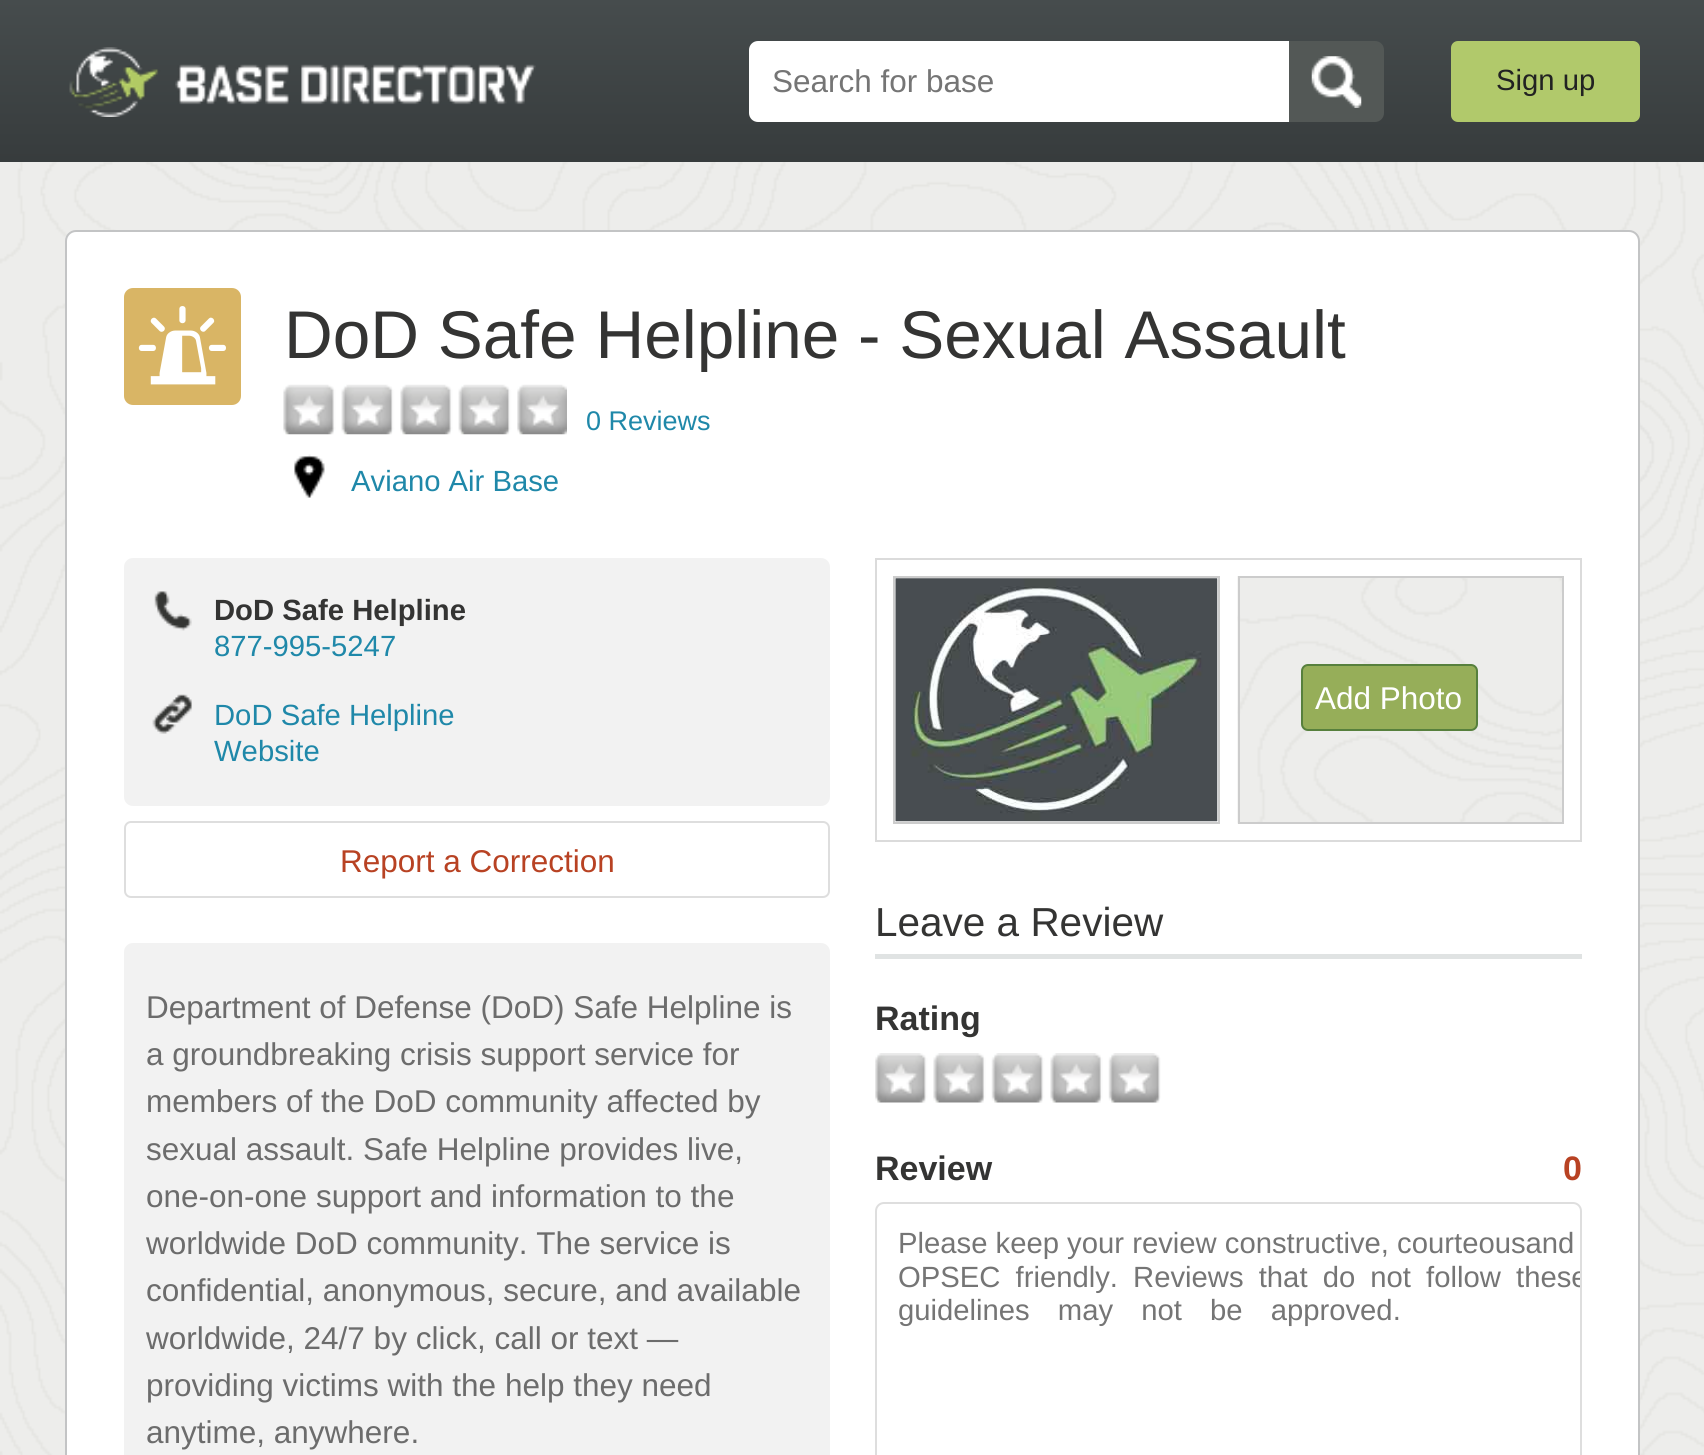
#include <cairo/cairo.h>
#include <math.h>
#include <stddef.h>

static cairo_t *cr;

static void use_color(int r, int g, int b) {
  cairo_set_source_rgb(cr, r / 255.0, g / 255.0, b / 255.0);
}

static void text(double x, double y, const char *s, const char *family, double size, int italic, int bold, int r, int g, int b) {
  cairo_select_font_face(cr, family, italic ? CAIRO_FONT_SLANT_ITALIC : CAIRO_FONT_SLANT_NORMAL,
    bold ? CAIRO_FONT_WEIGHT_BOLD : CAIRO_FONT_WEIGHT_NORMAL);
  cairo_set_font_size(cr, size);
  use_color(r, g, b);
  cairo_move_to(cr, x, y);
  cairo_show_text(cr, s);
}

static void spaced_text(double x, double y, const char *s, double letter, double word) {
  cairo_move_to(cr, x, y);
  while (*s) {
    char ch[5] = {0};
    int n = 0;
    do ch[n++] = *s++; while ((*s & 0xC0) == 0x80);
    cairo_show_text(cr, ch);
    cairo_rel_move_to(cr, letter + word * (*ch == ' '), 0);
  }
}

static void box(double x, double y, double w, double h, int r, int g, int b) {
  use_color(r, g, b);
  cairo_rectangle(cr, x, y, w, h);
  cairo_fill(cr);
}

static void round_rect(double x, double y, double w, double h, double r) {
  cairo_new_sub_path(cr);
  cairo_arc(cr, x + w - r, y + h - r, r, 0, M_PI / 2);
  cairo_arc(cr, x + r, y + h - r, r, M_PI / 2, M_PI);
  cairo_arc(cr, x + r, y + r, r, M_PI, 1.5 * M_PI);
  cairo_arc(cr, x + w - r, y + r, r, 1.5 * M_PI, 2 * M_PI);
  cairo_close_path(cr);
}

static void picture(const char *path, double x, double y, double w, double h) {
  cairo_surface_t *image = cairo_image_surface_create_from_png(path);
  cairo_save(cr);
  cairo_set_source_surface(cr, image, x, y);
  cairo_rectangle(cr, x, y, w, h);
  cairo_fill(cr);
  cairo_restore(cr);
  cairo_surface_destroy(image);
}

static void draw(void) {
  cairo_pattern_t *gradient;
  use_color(255, 255, 255);
  cairo_paint(cr);
  picture("img_01.png", 0, 162, 1704, 1293);
  gradient = cairo_pattern_create_linear(853, 0, 853, 160);
  cairo_pattern_add_color_stop_rgba(gradient, 0, 0.275, 0.298, 0.302, 1);
  cairo_pattern_add_color_stop_rgba(gradient, 1, 0.216, 0.235, 0.239, 1);
  cairo_set_source(cr, gradient);
  cairo_pattern_destroy(gradient);
  cairo_rectangle(cr, 0, 0, 1704, 160);
  cairo_fill(cr);
  box(0, 160, 1704, 2, 55, 60, 61);
  picture("img_02.png", 69, 47, 467, 70);
  use_color(255, 255, 255);
  cairo_new_path(cr);
  cairo_move_to(cr, 758, 41);
  cairo_line_to(cr, 1289, 41);
  cairo_line_to(cr, 1289, 122);
  cairo_line_to(cr, 758, 122);
  cairo_curve_to(cr, 753, 122, 749, 118, 749, 113);
  cairo_line_to(cr, 749, 50);
  cairo_curve_to(cr, 749, 45, 753, 41, 758, 41);
  cairo_close_path(cr);
  cairo_fill(cr);
  use_color(83, 88, 86);
  cairo_new_path(cr);
  cairo_move_to(cr, 1289, 41);
  cairo_line_to(cr, 1375, 41);
  cairo_curve_to(cr, 1380, 41, 1384, 45, 1384, 50);
  cairo_line_to(cr, 1384, 113);
  cairo_curve_to(cr, 1384, 118, 1380, 122, 1375, 122);
  cairo_line_to(cr, 1289, 122);
  cairo_close_path(cr);
  cairo_fill(cr);
  picture("img_03.png", 1311, 56, 51, 52);
  use_color(177, 201, 107);
  round_rect(1451, 41, 189, 81, 7);
  cairo_fill(cr);
  use_color(255, 255, 255);
  round_rect(66, 231, 1573, 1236, 10);
  cairo_fill_preserve(cr);
  use_color(195, 196, 197);
  cairo_stroke(cr);
  use_color(217, 181, 101);
  round_rect(124, 288, 117, 117, 9);
  cairo_fill(cr);
  picture("img_04.png", 138, 306, 88, 79);
  picture("img_05.png", 283, 384, 284, 51);
  picture("img_06.png", 294, 454, 31, 44);
  use_color(242, 242, 242);
  round_rect(124, 558, 706, 248, 9);
  cairo_fill(cr);
  picture("img_07.png", 154, 591, 38, 40);
  picture("img_08.png", 152, 694, 40, 40);
  round_rect(125, 822, 704, 75, 6);
  use_color(222, 222, 222);
  cairo_stroke(cr);
  use_color(242, 242, 242);
  round_rect(124, 943, 706, 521, 9);
  cairo_fill(cr);
  cairo_rectangle(cr, 876, 559, 705, 282);
  use_color(219, 219, 219);
  cairo_stroke(cr);
  cairo_rectangle(cr, 894, 577, 325, 246);
  use_color(204, 204, 204);
  cairo_stroke(cr);
  picture("img_09.png", 895, 578, 323, 244);
  picture("img_10.png", 1237, 576, 325, 248);
  cairo_rectangle(cr, 1239, 577, 324, 246);
  cairo_stroke(cr);
  use_color(150, 174, 89);
  round_rect(1302, 665, 175, 65, 6);
  cairo_fill_preserve(cr);
  use_color(87, 128, 61);
  cairo_stroke(cr);
  box(875, 954, 707, 5, 224, 227, 227);
  picture("img_11.png", 875, 1053, 286, 50);
  round_rect(876, 1203, 705, 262, 8);
  use_color(222, 222, 222);
  cairo_stroke(cr);
  text(772, 92, "Search for base", "Liberation Sans", 31.5, 0, 0, 117, 117, 117);
  text(1496, 90, "Sign up", "Liberation Sans", 29.25, 0, 0, 34, 34, 34);
  text(284, 358, "DoD Safe Helpline - Sexual Assault", "Liberation Sans", 67.5, 0, 0, 52, 52, 51);
  text(586, 430, "0 Reviews", "Liberation Sans", 27, 0, 0, 31, 136, 169);
  text(351, 491, "Aviano Air Base", "Liberation Sans", 29.25, 0, 0, 31, 136, 169);
  text(214, 620, "DoD Safe Helpline", "Liberation Sans", 29.25, 0, 1, 52, 52, 51);
  text(214, 656, "877-995-5247", "Liberation Sans", 29.25, 0, 0, 31, 136, 169);
  text(214, 725, "DoD Safe Helpline", "Liberation Sans", 29.25, 0, 0, 31, 136, 169);
  text(214, 761, "Website", "Liberation Sans", 29.25, 0, 0, 31, 136, 169);
  text(340, 872, "Report a Correction", "Liberation Sans", 31.5, 0, 0, 184, 66, 35);
  text(146, 1018, "Department of Defense (DoD) Safe Helpline is", "Liberation Sans", 31.5, 0, 0, 108, 108, 108);
  text(146, 1065, "a groundbreaking crisis support service for", "Liberation Sans", 31.5, 0, 0, 108, 108, 108);
  text(146, 1112, "members of the DoD community affected by", "Liberation Sans", 31.5, 0, 0, 108, 108, 108);
  text(146, 1160, "sexual assault. Safe Helpline provides live,", "Liberation Sans", 31.5, 0, 0, 108, 108, 108);
  text(146, 1207, "one-on-one support and information to the", "Liberation Sans", 31.5, 0, 0, 108, 108, 108);
  text(146, 1254, "worldwide DoD community. The service is", "Liberation Sans", 31.5, 0, 0, 108, 108, 108);
  text(146, 1301, "confidential, anonymous, secure, and available", "Liberation Sans", 31.5, 0, 0, 108, 108, 108);
  text(146, 1349, "worldwide, 24/7 by click, call or text —", "Liberation Sans", 31.5, 0, 0, 108, 108, 108);
  text(146, 1396, "providing victims with the help they need", "Liberation Sans", 31.5, 0, 0, 108, 108, 108);
  text(146, 1443, "anytime, anywhere.", "Liberation Sans", 31.5, 0, 0, 108, 108, 108);
  text(1315, 709, "Add Photo", "Liberation Sans", 31.5, 0, 0, 255, 255, 255);
  text(875, 936, "Leave a Review", "Liberation Sans", 40.5, 0, 0, 52, 52, 51);
  text(875, 1030, "Rating", "Liberation Sans", 34, 0, 1, 52, 52, 51);
  text(875, 1180, "Review", "Liberation Sans", 34, 0, 1, 52, 52, 51);
  text(1563, 1180, "0", "Liberation Sans", 34, 0, 1, 184, 66, 35);
  text(898, 1253, "Please keep your review constructive, courteousand", "Liberation Sans", 29.25, 0, 0, 117, 117, 117);
  spaced_text(898, 1287, "OPSEC friendly. Reviews that do not follow", 0, 7);
  cairo_save(cr);
  round_rect(878, 1204, 702, 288, 7);
  cairo_clip(cr);
  text(1516, 1287, "these", "Liberation Sans", 29.25, 0, 0, 117, 117, 117);
  cairo_restore(cr);
  spaced_text(898, 1320, "guidelines may not be approved.", 0, 20);
}

int main(void) {
  cairo_surface_t *surface = cairo_image_surface_create(CAIRO_FORMAT_RGB24, 1704, 1455);
  cr = cairo_create(surface);
  cairo_font_options_t *options = cairo_font_options_create();
  cairo_font_options_set_hint_metrics(options, CAIRO_HINT_METRICS_OFF);
  cairo_font_options_set_hint_style(options, CAIRO_HINT_STYLE_NONE);
  cairo_set_font_options(cr, options);
  cairo_set_miter_limit(cr, 4);
  draw();
  cairo_surface_write_to_png(surface, "out.png");
  cairo_font_options_destroy(options);
  cairo_destroy(cr);
  cairo_surface_destroy(surface);
  return 0;
}
